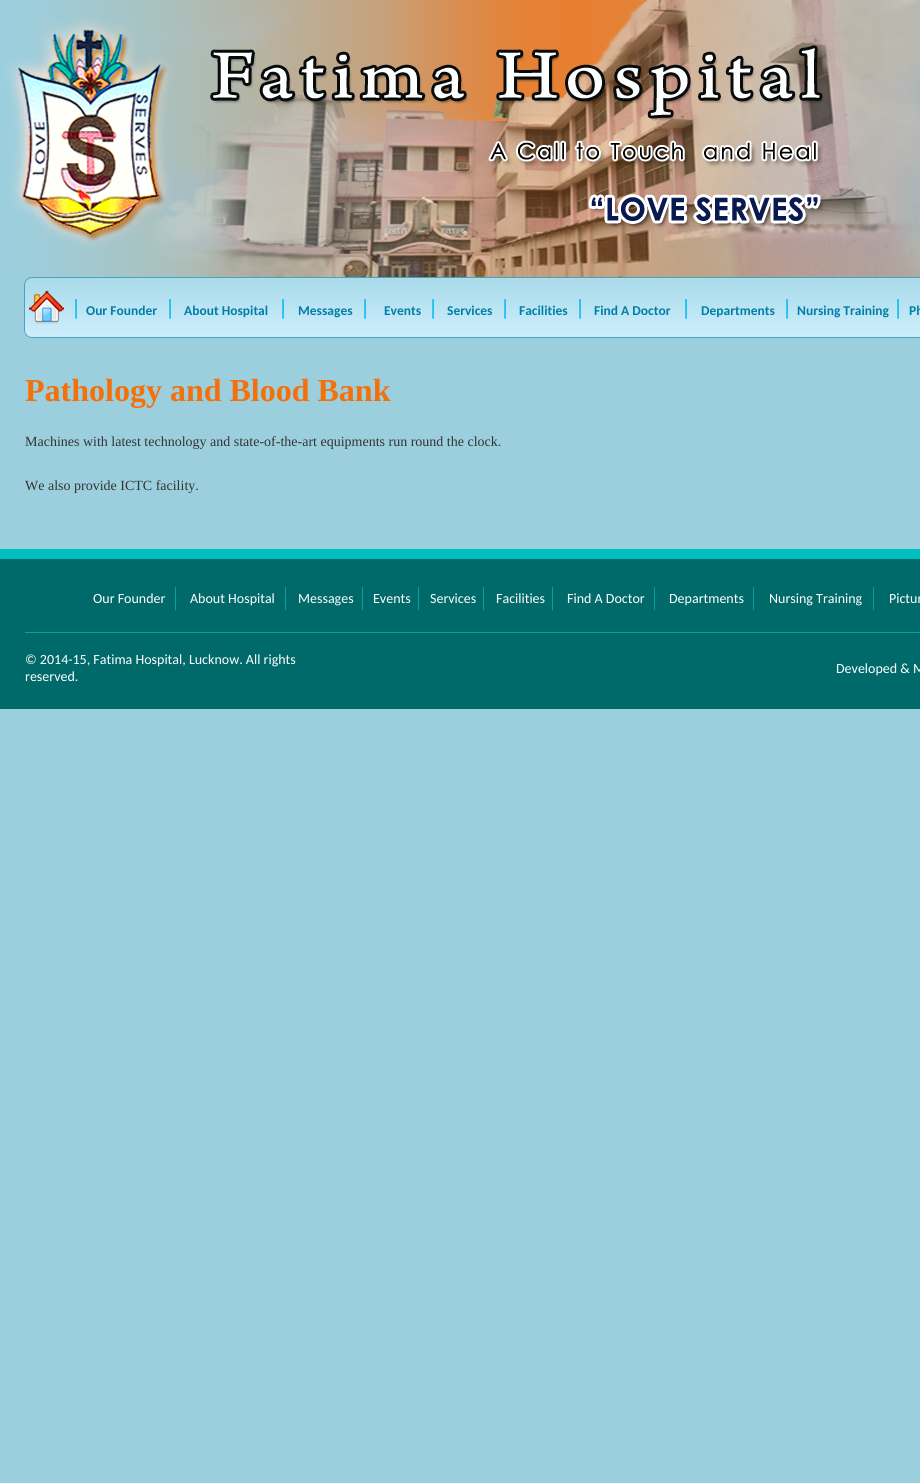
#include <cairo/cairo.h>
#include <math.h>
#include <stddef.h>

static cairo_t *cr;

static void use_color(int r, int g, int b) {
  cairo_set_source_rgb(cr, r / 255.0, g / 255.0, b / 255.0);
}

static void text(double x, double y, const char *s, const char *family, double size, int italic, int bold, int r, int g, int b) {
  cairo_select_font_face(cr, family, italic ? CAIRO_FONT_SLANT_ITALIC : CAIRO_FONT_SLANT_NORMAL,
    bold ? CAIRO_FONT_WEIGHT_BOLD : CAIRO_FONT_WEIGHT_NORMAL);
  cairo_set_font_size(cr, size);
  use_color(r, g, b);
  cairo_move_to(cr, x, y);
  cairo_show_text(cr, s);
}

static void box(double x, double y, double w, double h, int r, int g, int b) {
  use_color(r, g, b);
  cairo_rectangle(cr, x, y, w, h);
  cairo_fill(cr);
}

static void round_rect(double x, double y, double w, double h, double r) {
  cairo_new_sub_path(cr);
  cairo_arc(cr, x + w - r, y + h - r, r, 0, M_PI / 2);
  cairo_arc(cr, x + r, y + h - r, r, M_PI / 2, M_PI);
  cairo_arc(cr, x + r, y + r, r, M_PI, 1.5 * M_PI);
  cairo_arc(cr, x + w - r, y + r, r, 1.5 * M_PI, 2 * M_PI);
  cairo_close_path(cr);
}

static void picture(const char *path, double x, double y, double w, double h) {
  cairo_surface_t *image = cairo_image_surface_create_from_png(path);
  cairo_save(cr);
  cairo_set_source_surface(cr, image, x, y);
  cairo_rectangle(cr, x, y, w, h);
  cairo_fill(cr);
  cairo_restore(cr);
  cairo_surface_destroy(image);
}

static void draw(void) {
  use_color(156, 207, 222);
  cairo_paint(cr);
  picture("img_01.png", 0, 0, 920, 277);
  picture("img_02.png", 24, 278, 896, 60);
  round_rect(24.5, 277.5, 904, 60, 7.5);
  use_color(69, 165, 192);
  cairo_set_line_width(cr, 1);
  cairo_stroke(cr);
  picture("img_03.png", 29, 291, 35, 33);
  box(0, 549, 920, 10, 0, 191, 191);
  box(0, 559, 920, 150, 0, 106, 106);
  box(175, 587, 1, 23, 0, 164, 164);
  box(285, 587, 1, 23, 0, 164, 164);
  box(362, 587, 1, 23, 0, 164, 164);
  box(418, 587, 1, 23, 0, 164, 164);
  box(483, 587, 1, 23, 0, 164, 164);
  box(552, 587, 1, 23, 0, 164, 164);
  box(654, 587, 1, 23, 0, 164, 164);
  box(753, 587, 1, 23, 0, 164, 164);
  box(873, 587, 1, 23, 0, 164, 164);
  box(25, 632, 895, 1, 0, 164, 164);
  text(71, 315, "|", "Carlito", 22, 0, 0, 0, 181, 240);
  text(86, 315, "Our Founder", "Carlito", 13.5, 0, 1, 0, 126, 168);
  text(165, 315, "|", "Carlito", 22, 0, 0, 0, 181, 240);
  text(184, 315, "About Hospital", "Carlito", 13.5, 0, 1, 0, 126, 168);
  text(278, 315, "|", "Carlito", 22, 0, 0, 0, 181, 240);
  text(298, 315, "Messages", "Carlito", 13.5, 0, 1, 0, 126, 168);
  text(360, 315, "|", "Carlito", 22, 0, 0, 0, 181, 240);
  text(384, 315, "Events", "Carlito", 13.5, 0, 1, 0, 126, 168);
  text(428, 315, "|", "Carlito", 22, 0, 0, 0, 181, 240);
  text(447, 315, "Services", "Carlito", 13.5, 0, 1, 0, 126, 168);
  text(500, 315, "|", "Carlito", 22, 0, 0, 0, 181, 240);
  text(519, 315, "Facilities", "Carlito", 13.5, 0, 1, 0, 126, 168);
  text(575, 315, "|", "Carlito", 22, 0, 0, 0, 181, 240);
  text(594, 315, "Find A Doctor", "Carlito", 13.5, 0, 1, 0, 126, 168);
  text(681, 315, "|", "Carlito", 22, 0, 0, 0, 181, 240);
  text(701, 315, "Departments", "Carlito", 13.5, 0, 1, 0, 126, 168);
  text(782, 315, "|", "Carlito", 22, 0, 0, 0, 181, 240);
  text(797, 315, "Nursing Training", "Carlito", 13.5, 0, 1, 0, 126, 168);
  text(893, 315, "|", "Carlito", 22, 0, 0, 0, 181, 240);
  text(909, 315, "Ph", "Carlito", 13.5, 0, 1, 0, 126, 168);
  text(25, 401, "Pathology and Blood Bank", "Liberation Serif", 32, 0, 1, 244, 112, 10);
  text(25, 446, "Machines with latest technology and state-of-the-art equipments run round the clock.", "Liberation Serif", 14, 0, 0, 51, 51, 51);
  text(25, 490, "We also provide ICTC facility.", "Liberation Serif", 14, 0, 0, 51, 51, 51);
  text(93, 603, "Our Founder", "Carlito", 14, 0, 0, 255, 255, 255);
  text(190, 603, "About Hospital", "Carlito", 14, 0, 0, 255, 255, 255);
  text(298, 603, "Messages", "Carlito", 14, 0, 0, 255, 255, 255);
  text(373, 603, "Events", "Carlito", 14, 0, 0, 255, 255, 255);
  text(430, 603, "Services", "Carlito", 14, 0, 0, 255, 255, 255);
  text(496, 603, "Facilities", "Carlito", 14, 0, 0, 255, 255, 255);
  text(567, 603, "Find A Doctor", "Carlito", 14, 0, 0, 255, 255, 255);
  text(669, 603, "Departments", "Carlito", 14, 0, 0, 255, 255, 255);
  text(769, 603, "Nursing Training", "Carlito", 14, 0, 0, 255, 255, 255);
  text(889, 603, "Pictur", "Carlito", 14, 0, 0, 255, 255, 255);
  text(25, 664, "© 2014-15, Fatima Hospital, Lucknow. All rights", "Carlito", 14, 0, 0, 255, 255, 255);
  text(25, 681, "reserved.", "Carlito", 14, 0, 0, 255, 255, 255);
  text(836, 673, "Developed & M", "Carlito", 14, 0, 0, 255, 255, 255);
}

int main(void) {
  cairo_surface_t *surface = cairo_image_surface_create(CAIRO_FORMAT_RGB24, 920, 1483);
  cr = cairo_create(surface);
  cairo_font_options_t *options = cairo_font_options_create();
  cairo_font_options_set_hint_metrics(options, CAIRO_HINT_METRICS_OFF);
  cairo_font_options_set_hint_style(options, CAIRO_HINT_STYLE_NONE);
  cairo_set_font_options(cr, options);
  cairo_set_miter_limit(cr, 4);
  draw();
  cairo_surface_write_to_png(surface, "out.png");
  cairo_font_options_destroy(options);
  cairo_destroy(cr);
  cairo_surface_destroy(surface);
  return 0;
}
